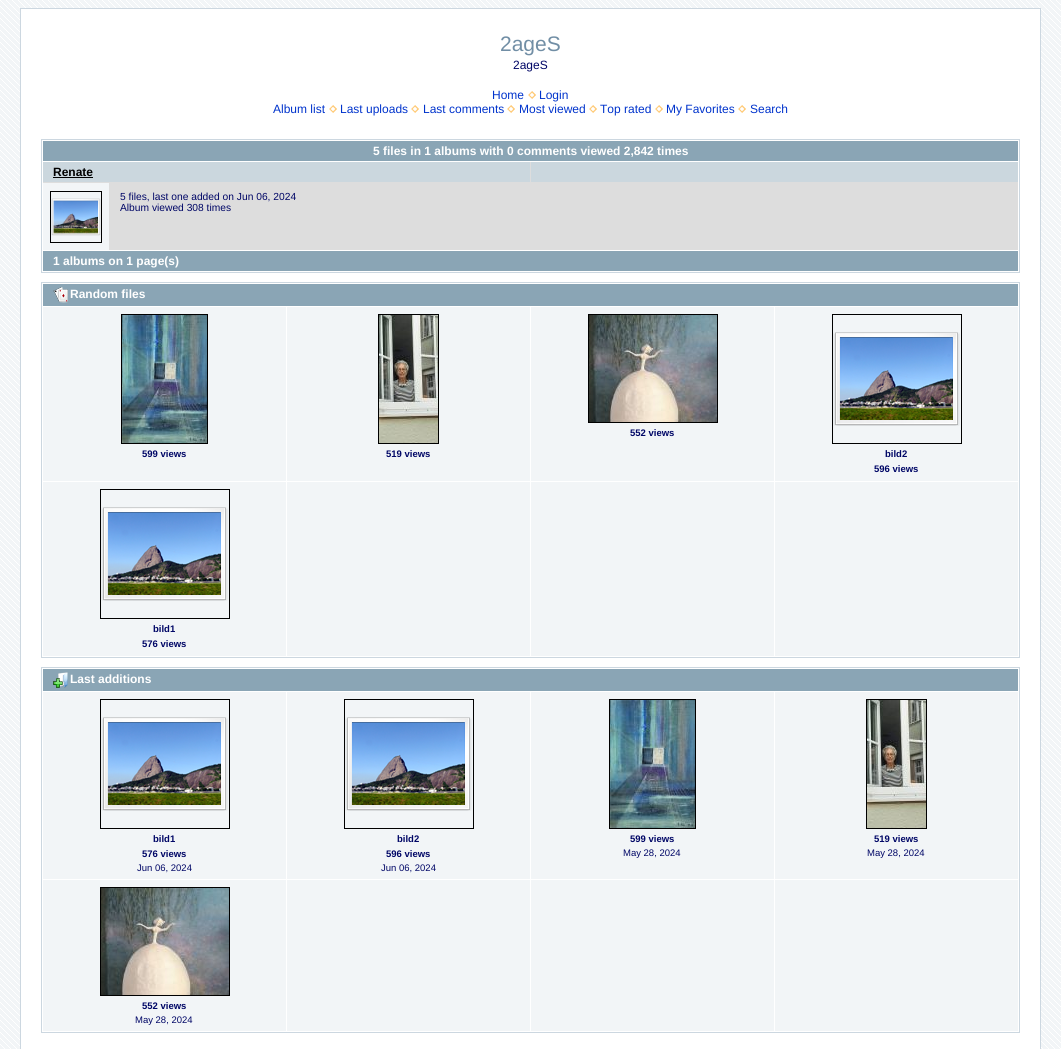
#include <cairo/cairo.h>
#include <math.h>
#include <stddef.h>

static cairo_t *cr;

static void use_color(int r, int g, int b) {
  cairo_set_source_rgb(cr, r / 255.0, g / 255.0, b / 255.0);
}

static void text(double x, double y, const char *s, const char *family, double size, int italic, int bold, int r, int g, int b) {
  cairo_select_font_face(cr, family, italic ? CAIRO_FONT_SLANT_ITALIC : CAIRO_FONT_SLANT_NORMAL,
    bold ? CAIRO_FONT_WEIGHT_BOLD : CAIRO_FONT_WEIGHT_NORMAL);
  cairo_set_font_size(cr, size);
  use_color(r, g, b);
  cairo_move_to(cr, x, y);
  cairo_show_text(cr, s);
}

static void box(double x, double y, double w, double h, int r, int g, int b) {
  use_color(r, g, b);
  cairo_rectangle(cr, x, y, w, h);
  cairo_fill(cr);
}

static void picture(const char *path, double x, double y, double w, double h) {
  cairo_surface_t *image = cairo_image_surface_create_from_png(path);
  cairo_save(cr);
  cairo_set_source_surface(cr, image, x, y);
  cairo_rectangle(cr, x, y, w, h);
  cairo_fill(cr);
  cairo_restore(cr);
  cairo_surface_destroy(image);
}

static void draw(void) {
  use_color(242, 245, 247);
  cairo_paint(cr);
  picture("img_01.png", 0, 0, 1061, 1049);
  use_color(255, 255, 255);
  cairo_rectangle(cr, 20.5, 8.5, 1020, 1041);
  cairo_fill_preserve(cr);
  use_color(204, 215, 224);
  cairo_set_line_width(cr, 1);
  cairo_stroke(cr);
  picture("img_02.png", 528, 91, 8, 8);
  picture("img_02.png", 329, 105, 8, 8);
  picture("img_02.png", 411, 105, 8, 8);
  picture("img_02.png", 507, 105, 8, 8);
  picture("img_02.png", 589, 105, 8, 8);
  picture("img_02.png", 655, 105, 8, 8);
  picture("img_02.png", 738, 105, 8, 8);
  cairo_rectangle(cr, 41.5, 139.5, 978, 133);
  cairo_stroke(cr);
  box(43, 141, 975, 20, 138, 165, 181);
  box(43, 162, 975, 88, 221, 221, 221);
  box(43, 162, 487, 20, 203, 215, 222);
  box(53, 177, 40, 1, 0, 0, 0);
  box(43, 183, 66, 67, 242, 245, 247);
  cairo_rectangle(cr, 50.5, 191.5, 51, 51);
  use_color(0, 0, 0);
  cairo_stroke(cr);
  picture("img_03.png", 51, 198, 50, 38);
  box(531, 162, 487, 20, 203, 215, 222);
  box(43, 251, 975, 20, 138, 165, 181);
  cairo_rectangle(cr, 41.5, 282.5, 978, 375);
  use_color(204, 215, 224);
  cairo_stroke(cr);
  box(43, 284, 975, 22, 138, 165, 181);
  picture("img_04.png", 53, 287, 15, 16);
  box(531, 307, 243, 174, 242, 245, 247);
  cairo_rectangle(cr, 588.5, 314.5, 129, 108);
  use_color(0, 0, 0);
  cairo_stroke(cr);
  picture("img_05.png", 589, 315, 128, 107);
  box(43, 307, 243, 174, 242, 245, 247);
  cairo_rectangle(cr, 121.5, 314.5, 86, 129);
  use_color(0, 0, 0);
  cairo_stroke(cr);
  picture("img_06.png", 122, 315, 85, 128);
  box(287, 307, 243, 174, 242, 245, 247);
  cairo_rectangle(cr, 378.5, 314.5, 60, 129);
  use_color(0, 0, 0);
  cairo_stroke(cr);
  picture("img_07.png", 379, 315, 59, 128);
  box(775, 307, 243, 174, 242, 245, 247);
  cairo_rectangle(cr, 832.5, 314.5, 129, 129);
  use_color(0, 0, 0);
  cairo_stroke(cr);
  picture("img_08.png", 833, 332, 127, 94);
  box(43, 482, 243, 174, 242, 245, 247);
  cairo_rectangle(cr, 100.5, 489.5, 129, 129);
  use_color(0, 0, 0);
  cairo_stroke(cr);
  picture("img_08.png", 101, 507, 127, 94);
  box(287, 482, 243, 174, 242, 245, 247);
  box(531, 482, 243, 174, 242, 245, 247);
  box(775, 482, 243, 174, 242, 245, 247);
  cairo_rectangle(cr, 41.5, 667.5, 978, 365);
  use_color(204, 215, 224);
  cairo_stroke(cr);
  box(43, 669, 975, 22, 138, 165, 181);
  picture("img_09.png", 53, 672, 15, 16);
  box(43, 692, 243, 187, 242, 245, 247);
  cairo_rectangle(cr, 100.5, 699.5, 129, 129);
  use_color(0, 0, 0);
  cairo_stroke(cr);
  picture("img_08.png", 101, 717, 127, 94);
  box(287, 692, 243, 187, 242, 245, 247);
  cairo_rectangle(cr, 344.5, 699.5, 129, 129);
  use_color(0, 0, 0);
  cairo_stroke(cr);
  picture("img_08.png", 345, 717, 127, 94);
  box(531, 692, 243, 187, 242, 245, 247);
  cairo_rectangle(cr, 609.5, 699.5, 86, 129);
  use_color(0, 0, 0);
  cairo_stroke(cr);
  picture("img_06.png", 610, 700, 85, 128);
  box(775, 692, 243, 187, 242, 245, 247);
  cairo_rectangle(cr, 866.5, 699.5, 60, 129);
  use_color(0, 0, 0);
  cairo_stroke(cr);
  picture("img_07.png", 867, 700, 59, 128);
  box(43, 880, 243, 151, 242, 245, 247);
  cairo_rectangle(cr, 100.5, 887.5, 129, 108);
  use_color(0, 0, 0);
  cairo_stroke(cr);
  picture("img_05.png", 101, 888, 128, 107);
  box(287, 880, 243, 151, 242, 245, 247);
  box(531, 880, 243, 151, 242, 245, 247);
  box(775, 880, 243, 151, 242, 245, 247);
  text(500, 51, "2ageS", "Liberation Sans", 21, 0, 0, 113, 142, 165);
  text(513, 69, "2ageS", "Liberation Sans", 12, 0, 0, 0, 6, 102);
  text(492, 99, "Home", "Liberation Sans", 12, 0, 0, 0, 51, 204);
  text(539, 99, "Login", "Liberation Sans", 12, 0, 0, 0, 51, 204);
  text(273, 113, "Album list", "Liberation Sans", 12, 0, 0, 0, 51, 204);
  text(340, 113, "Last uploads", "Liberation Sans", 12, 0, 0, 0, 51, 204);
  text(423, 113, "Last comments", "Liberation Sans", 12, 0, 0, 0, 51, 204);
  text(519, 113, "Most viewed", "Liberation Sans", 12, 0, 0, 0, 51, 204);
  text(600, 113, "Top rated", "Liberation Sans", 12, 0, 0, 0, 51, 204);
  text(666, 113, "My Favorites", "Liberation Sans", 12, 0, 0, 0, 51, 204);
  text(750, 113, "Search", "Liberation Sans", 12, 0, 0, 0, 51, 204);
  text(373, 155, "5 files in 1 albums with 0 comments viewed 2,842 times", "Liberation Sans", 12, 0, 1, 255, 255, 255);
  text(53, 176, "Renate", "Liberation Sans", 12, 0, 1, 0, 0, 0);
  text(120, 200, "5 files, last one added on Jun 06, 2024", "Liberation Sans", 10.25, 0, 0, 0, 6, 102);
  text(120, 211, "Album viewed 308 times", "Liberation Sans", 10.25, 0, 0, 0, 6, 102);
  text(53, 265, "1 albums on 1 page(s)", "Liberation Sans", 12, 0, 1, 255, 255, 255);
  text(70, 298, "Random files", "Liberation Sans", 12, 0, 1, 255, 255, 255);
  text(630, 436, "552 views", "Liberation Sans", 9.5, 0, 1, 0, 6, 102);
  text(142, 457, "599 views", "Liberation Sans", 9.5, 0, 1, 0, 6, 102);
  text(386, 457, "519 views", "Liberation Sans", 9.5, 0, 1, 0, 6, 102);
  text(885, 457, "bild2", "Liberation Sans", 9.5, 0, 1, 0, 6, 102);
  text(874, 472, "596 views", "Liberation Sans", 9.5, 0, 1, 0, 6, 102);
  text(153, 632, "bild1", "Liberation Sans", 9.5, 0, 1, 0, 6, 102);
  text(142, 647, "576 views", "Liberation Sans", 9.5, 0, 1, 0, 6, 102);
  text(70, 683, "Last additions", "Liberation Sans", 12, 0, 1, 255, 255, 255);
  text(153, 842, "bild1", "Liberation Sans", 9.5, 0, 1, 0, 6, 102);
  text(142, 857, "576 views", "Liberation Sans", 9.5, 0, 1, 0, 6, 102);
  text(137, 871, "Jun 06, 2024", "Liberation Sans", 9.5, 0, 0, 0, 6, 102);
  text(397, 842, "bild2", "Liberation Sans", 9.5, 0, 1, 0, 6, 102);
  text(386, 857, "596 views", "Liberation Sans", 9.5, 0, 1, 0, 6, 102);
  text(381, 871, "Jun 06, 2024", "Liberation Sans", 9.5, 0, 0, 0, 6, 102);
  text(630, 842, "599 views", "Liberation Sans", 9.5, 0, 1, 0, 6, 102);
  text(623, 856, "May 28, 2024", "Liberation Sans", 9.5, 0, 0, 0, 6, 102);
  text(874, 842, "519 views", "Liberation Sans", 9.5, 0, 1, 0, 6, 102);
  text(867, 856, "May 28, 2024", "Liberation Sans", 9.5, 0, 0, 0, 6, 102);
  text(142, 1009, "552 views", "Liberation Sans", 9.5, 0, 1, 0, 6, 102);
  text(135, 1023, "May 28, 2024", "Liberation Sans", 9.5, 0, 0, 0, 6, 102);
}

int main(void) {
  cairo_surface_t *surface = cairo_image_surface_create(CAIRO_FORMAT_RGB24, 1061, 1049);
  cr = cairo_create(surface);
  cairo_font_options_t *options = cairo_font_options_create();
  cairo_font_options_set_hint_metrics(options, CAIRO_HINT_METRICS_OFF);
  cairo_font_options_set_hint_style(options, CAIRO_HINT_STYLE_NONE);
  cairo_set_font_options(cr, options);
  cairo_set_miter_limit(cr, 4);
  draw();
  cairo_surface_write_to_png(surface, "out.png");
  cairo_font_options_destroy(options);
  cairo_destroy(cr);
  cairo_surface_destroy(surface);
  return 0;
}
